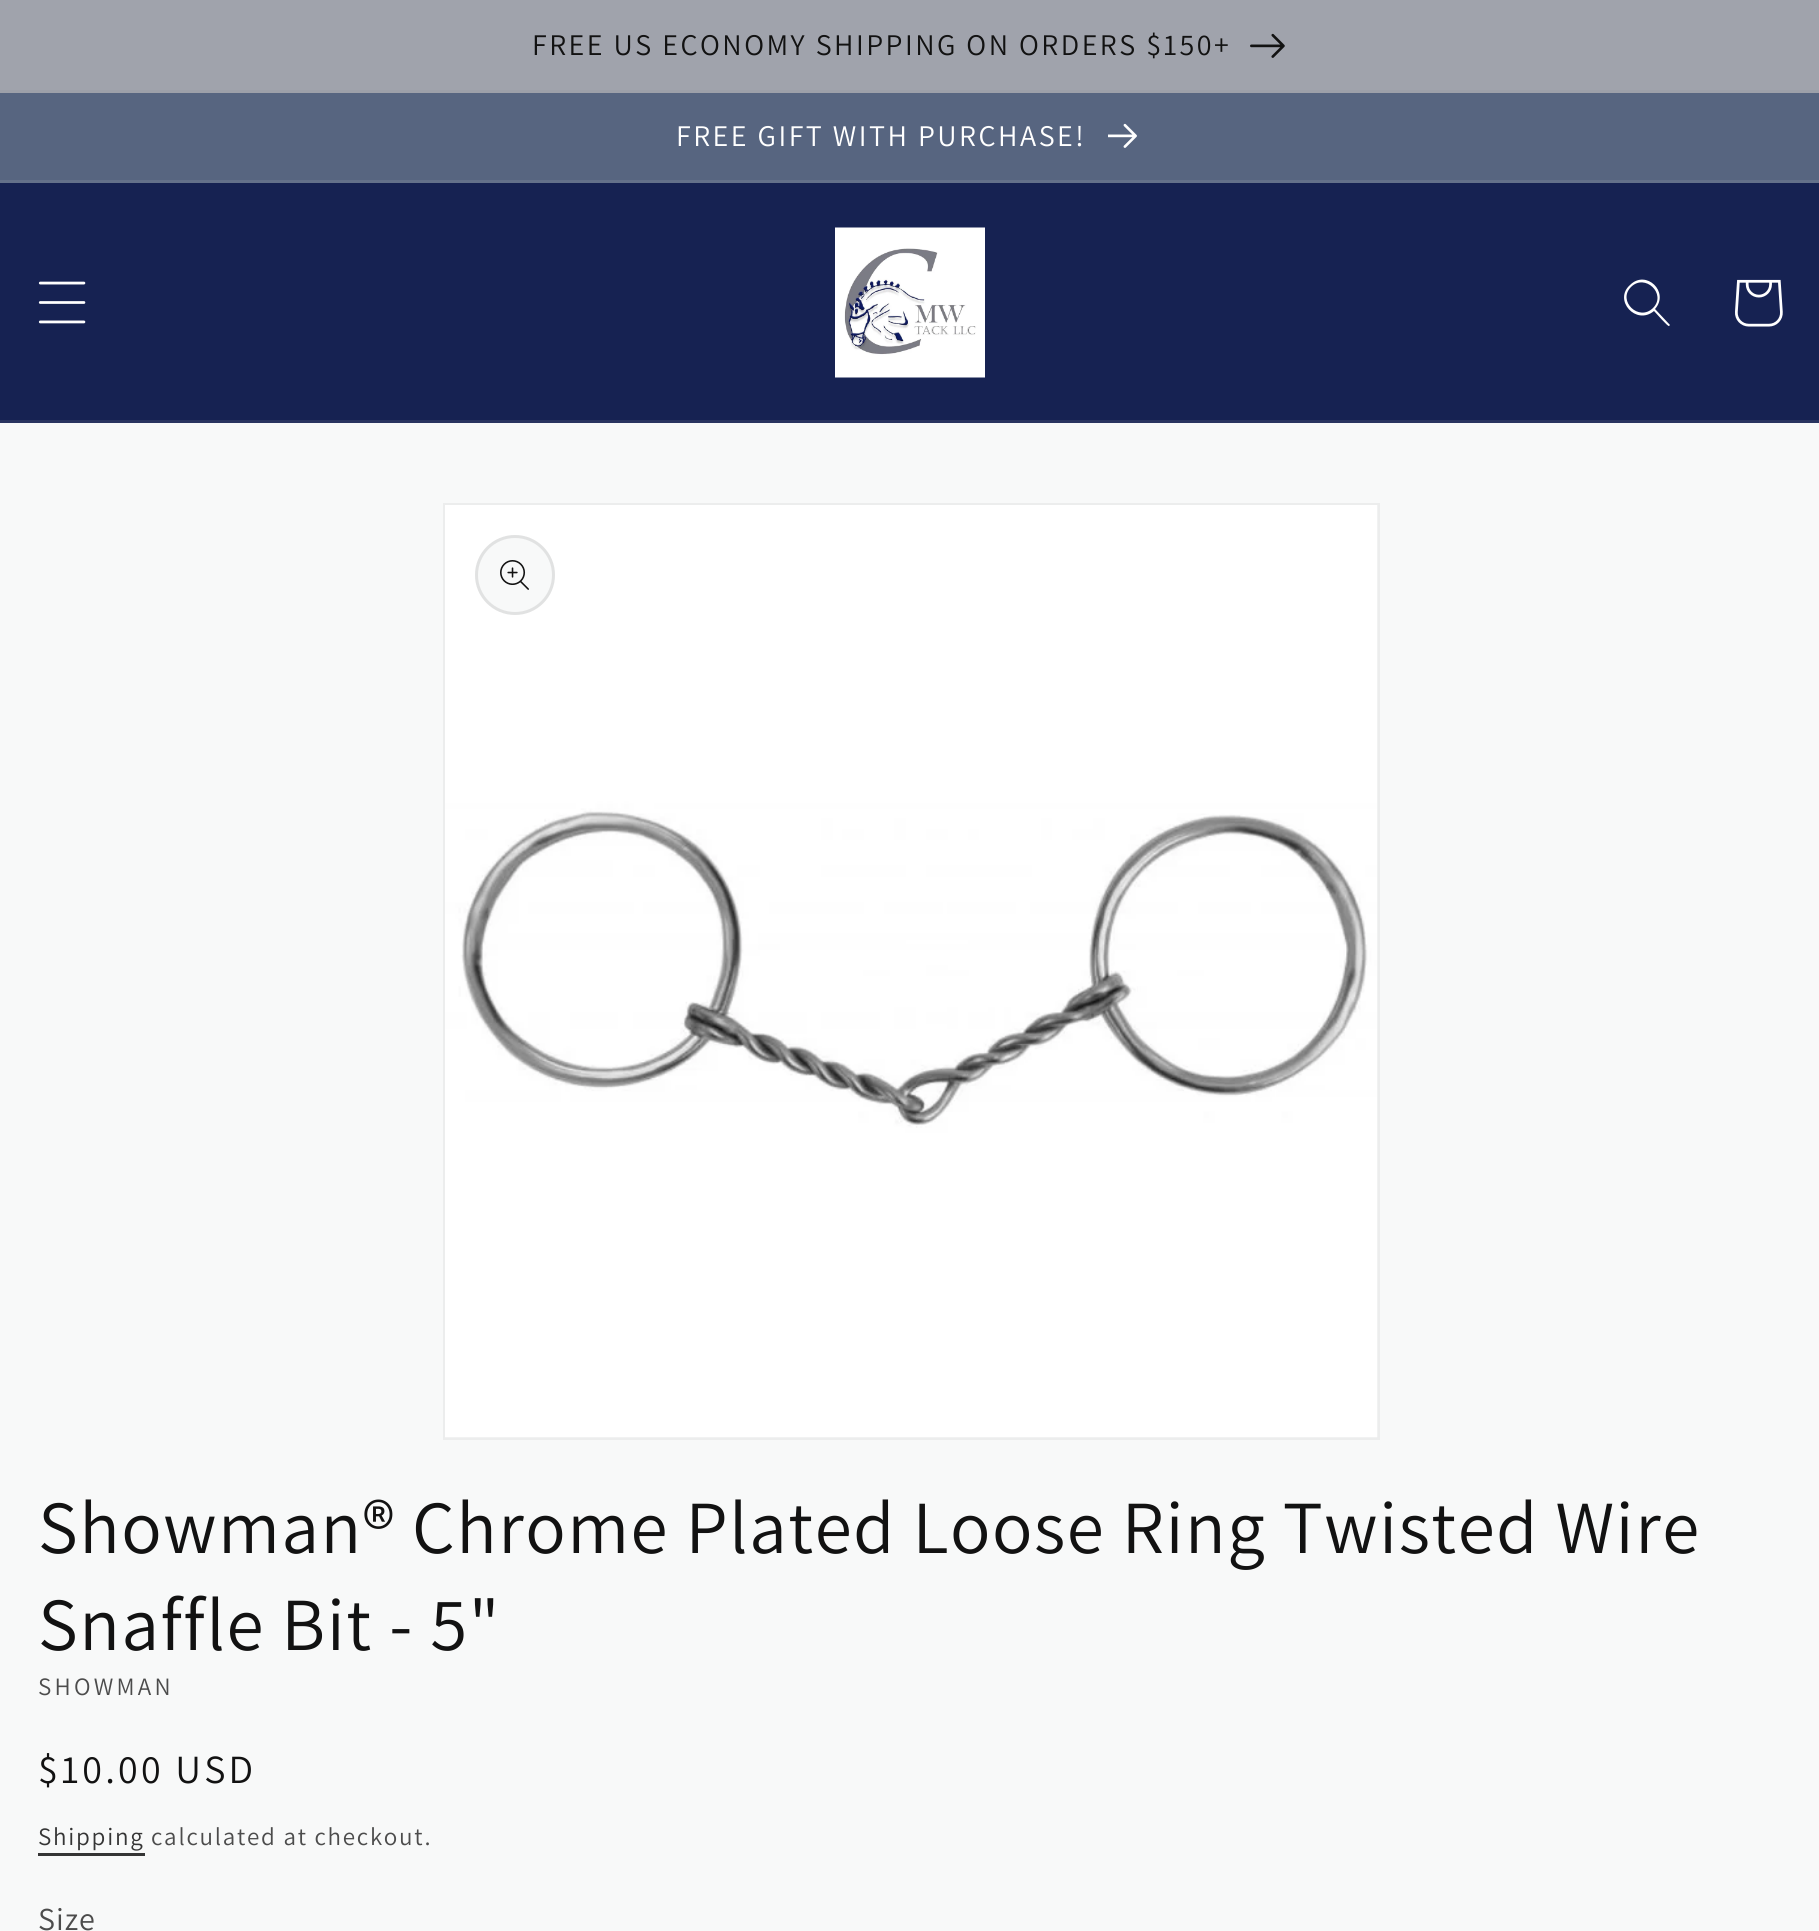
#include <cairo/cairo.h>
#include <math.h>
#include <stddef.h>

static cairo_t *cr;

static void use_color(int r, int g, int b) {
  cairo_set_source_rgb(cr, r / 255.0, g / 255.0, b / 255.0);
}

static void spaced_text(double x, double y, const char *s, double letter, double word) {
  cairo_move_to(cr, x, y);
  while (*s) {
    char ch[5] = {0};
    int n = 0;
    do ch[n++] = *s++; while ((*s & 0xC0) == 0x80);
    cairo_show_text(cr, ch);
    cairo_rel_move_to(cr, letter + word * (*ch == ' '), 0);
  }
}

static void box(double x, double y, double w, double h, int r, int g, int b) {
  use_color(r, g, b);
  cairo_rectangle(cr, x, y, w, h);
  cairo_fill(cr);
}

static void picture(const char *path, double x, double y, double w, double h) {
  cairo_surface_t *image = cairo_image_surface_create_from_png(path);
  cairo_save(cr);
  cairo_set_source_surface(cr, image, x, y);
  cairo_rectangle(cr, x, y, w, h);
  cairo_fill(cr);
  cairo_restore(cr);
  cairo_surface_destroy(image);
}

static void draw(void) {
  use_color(248, 249, 249);
  cairo_paint(cr);
  box(0, 90, 1819, 3, 157, 160, 169);
  box(0, 0, 1819, 90, 160, 163, 172);
  picture("img_01.png", 1250, 33, 35, 25);
  box(0, 93, 1819, 87, 87, 101, 128);
  box(0, 180, 1819, 3, 100, 113, 138);
  picture("img_02.png", 1108, 123, 29, 25);
  box(0, 183, 1819, 237, 22, 34, 82);
  box(0, 420, 1819, 3, 41, 52, 96);
  picture("img_03.png", 38, 281, 48, 43);
  picture("img_04.png", 835, 227, 150, 151);
  use_color(255, 255, 255);
  cairo_set_fill_rule(cr, CAIRO_FILL_RULE_EVEN_ODD);
  cairo_new_path(cr);
  cairo_move_to(cr, 1653, 308);
  cairo_curve_to(cr, 1639, 322, 1617, 301, 1631, 287);
  cairo_curve_to(cr, 1645, 273, 1667, 294, 1653, 308);
  cairo_close_path(cr);
  cairo_move_to(cr, 1654, 311);
  cairo_curve_to(cr, 1636, 326, 1613, 300, 1630, 285);
  cairo_curve_to(cr, 1646, 269, 1670, 292, 1655, 309);
  cairo_line_to(cr, 1670, 325);
  cairo_line_to(cr, 1669, 326);
  cairo_curve_to(cr, 1668, 327, 1656, 313, 1654, 311);
  cairo_close_path(cr);
  cairo_fill(cr);
  picture("img_05.png", 1735, 279, 48, 48);
  cairo_rectangle(cr, 444.5, 504.5, 934, 934);
  use_color(236, 237, 237);
  cairo_set_line_width(cr, 3);
  cairo_stroke(cr);
  picture("img_06.png", 445, 505, 933, 933);
  use_color(248, 249, 249);
  cairo_arc(cr, 515, 575, 40, 0, 2 * M_PI);
  cairo_fill(cr);
  cairo_arc(cr, 515, 575, 38.5, 0, 2 * M_PI);
  cairo_set_source_rgba(cr, 0.071, 0.071, 0.071, 0.1);
  cairo_stroke(cr);
  picture("img_07.png", 500, 560, 29, 30);
  box(38, 1853, 107, 3, 53, 53, 53);
  cairo_select_font_face(cr, "Assistant", CAIRO_FONT_SLANT_NORMAL, CAIRO_FONT_WEIGHT_NORMAL);
  cairo_set_font_size(cr, 30);
  use_color(18, 18, 18);
  spaced_text(532, 55, "FREE US ECONOMY SHIPPING ON ORDERS $150+", 2.5, 0);
  use_color(255, 255, 255);
  spaced_text(676, 146, "FREE GIFT WITH PURCHASE!", 2.5, 0);
  cairo_set_font_size(cr, 75);
  use_color(18, 18, 18);
  spaced_text(38, 1553, "Showman® Chrome Plated Loose Ring Twisted Wire", 1.5, 0);
  spaced_text(38, 1650, "Snaffle Bit - 5\"", 1.5, 0);
  cairo_set_font_size(cr, 25);
  use_color(76, 76, 76);
  spaced_text(38, 1695, "SHOWMAN", 3.25, 0);
  cairo_set_font_size(cr, 40);
  use_color(18, 18, 18);
  spaced_text(38, 1783, "$10.00 USD", 3.25, 0);
  cairo_set_font_size(cr, 25);
  use_color(53, 53, 53);
  spaced_text(38, 1845, "Shipping", 1.75, 0);
  use_color(76, 76, 76);
  spaced_text(151, 1845, "calculated at checkout.", 1.75, 0);
  cairo_set_font_size(cr, 32);
  spaced_text(38, 1930, "Size", 1, 0);
}

int main(void) {
  cairo_surface_t *surface = cairo_image_surface_create(CAIRO_FORMAT_RGB24, 1819, 1931);
  cr = cairo_create(surface);
  cairo_font_options_t *options = cairo_font_options_create();
  cairo_font_options_set_hint_metrics(options, CAIRO_HINT_METRICS_OFF);
  cairo_font_options_set_hint_style(options, CAIRO_HINT_STYLE_NONE);
  cairo_set_font_options(cr, options);
  cairo_set_miter_limit(cr, 4);
  draw();
  cairo_surface_write_to_png(surface, "out.png");
  cairo_font_options_destroy(options);
  cairo_destroy(cr);
  cairo_surface_destroy(surface);
  return 0;
}
